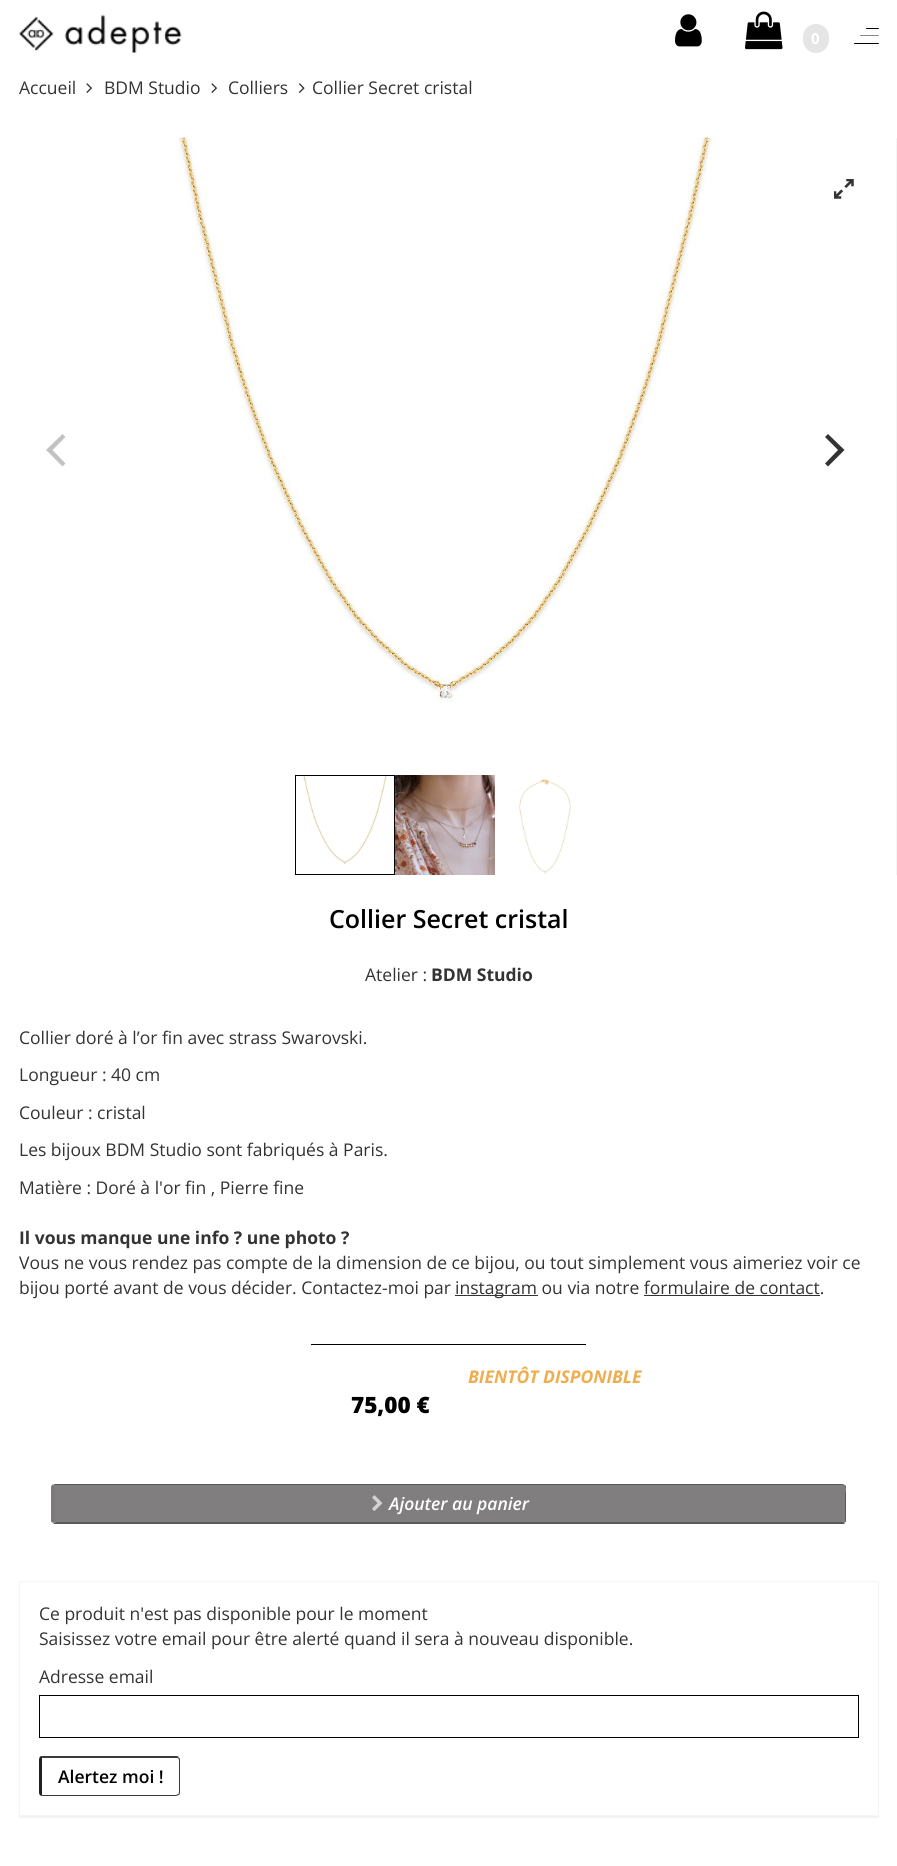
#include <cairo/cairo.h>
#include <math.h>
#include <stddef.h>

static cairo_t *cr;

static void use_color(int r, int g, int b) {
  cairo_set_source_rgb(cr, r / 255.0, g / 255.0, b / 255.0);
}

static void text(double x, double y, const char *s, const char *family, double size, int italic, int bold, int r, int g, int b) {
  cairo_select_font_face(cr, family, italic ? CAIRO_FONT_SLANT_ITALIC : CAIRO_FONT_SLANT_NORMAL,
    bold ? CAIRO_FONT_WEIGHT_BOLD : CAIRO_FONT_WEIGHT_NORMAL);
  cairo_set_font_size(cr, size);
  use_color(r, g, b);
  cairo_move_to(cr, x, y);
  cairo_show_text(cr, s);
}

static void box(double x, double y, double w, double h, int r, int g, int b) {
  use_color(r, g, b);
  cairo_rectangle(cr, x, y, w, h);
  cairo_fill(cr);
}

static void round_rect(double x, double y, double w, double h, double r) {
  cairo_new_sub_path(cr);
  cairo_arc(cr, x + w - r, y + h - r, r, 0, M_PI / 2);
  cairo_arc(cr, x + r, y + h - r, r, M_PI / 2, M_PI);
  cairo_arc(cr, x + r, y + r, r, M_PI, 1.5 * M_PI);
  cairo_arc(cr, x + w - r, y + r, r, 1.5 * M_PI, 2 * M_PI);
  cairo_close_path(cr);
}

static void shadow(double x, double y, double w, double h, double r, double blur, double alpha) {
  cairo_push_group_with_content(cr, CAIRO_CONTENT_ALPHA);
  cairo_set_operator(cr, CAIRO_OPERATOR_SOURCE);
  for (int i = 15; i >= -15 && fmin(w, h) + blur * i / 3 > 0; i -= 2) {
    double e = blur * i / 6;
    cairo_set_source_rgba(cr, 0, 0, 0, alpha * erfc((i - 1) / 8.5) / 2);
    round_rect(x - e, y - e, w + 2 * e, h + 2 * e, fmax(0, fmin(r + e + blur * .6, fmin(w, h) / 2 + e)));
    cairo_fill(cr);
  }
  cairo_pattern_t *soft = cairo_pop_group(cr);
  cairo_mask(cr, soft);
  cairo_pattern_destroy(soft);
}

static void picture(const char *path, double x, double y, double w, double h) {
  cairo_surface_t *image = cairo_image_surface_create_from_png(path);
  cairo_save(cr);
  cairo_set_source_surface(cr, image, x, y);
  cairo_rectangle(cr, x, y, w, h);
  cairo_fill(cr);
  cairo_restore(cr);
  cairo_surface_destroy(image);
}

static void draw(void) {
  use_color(255, 255, 255);
  cairo_paint(cr);
  picture("img_01.png", 18, 14, 164, 39);
  picture("img_02.png", 675, 14, 27, 33);
  picture("img_03.png", 745, 11, 38, 39);
  use_color(229, 229, 229);
  round_rect(803, 24, 26, 29, 13);
  cairo_fill(cr);
  use_color(136, 136, 136);
  round_rect(860, 35, 19, 1, 0.5);
  cairo_fill(cr);
  use_color(0, 0, 0);
  round_rect(866, 28, 13, 1, 0.5);
  cairo_fill(cr);
  round_rect(854, 43, 25, 1, 0.5);
  cairo_fill(cr);
  picture("img_04.png", 86, 83, 6, 10);
  picture("img_04.png", 211, 83, 6, 10);
  picture("img_05.png", 298, 83, 7, 10);
  box(896, 138, 1, 737, 245, 245, 245);
  picture("img_06.png", 178, 137, 538, 566);
  picture("img_07.png", 834, 179, 20, 20);
  use_color(194, 194, 194);
  cairo_new_path(cr);
  cairo_move_to(cr, 46, 450);
  cairo_line_to(cr, 62.5, 466.5);
  cairo_line_to(cr, 65.5, 463.5);
  cairo_line_to(cr, 52.5, 450);
  cairo_line_to(cr, 65.5, 437);
  cairo_line_to(cr, 62.5, 434);
  cairo_close_path(cr);
  cairo_fill(cr);
  use_color(51, 51, 51);
  cairo_new_path(cr);
  cairo_move_to(cr, 844.5, 450);
  cairo_line_to(cr, 828, 434);
  cairo_line_to(cr, 825, 437);
  cairo_line_to(cr, 838, 450);
  cairo_line_to(cr, 825, 463.5);
  cairo_line_to(cr, 828, 466.5);
  cairo_close_path(cr);
  cairo_fill(cr);
  cairo_rectangle(cr, 295.5, 775.5, 99, 99);
  use_color(0, 0, 0);
  cairo_set_line_width(cr, 1);
  cairo_stroke(cr);
  picture("img_08.png", 303, 776, 84, 88);
  picture("img_09.png", 394, 775, 101, 100);
  picture("img_10.png", 494, 779, 77, 96);
  box(455, 1295, 83, 1, 51, 51, 51);
  box(644, 1295, 176, 1, 51, 51, 51);
  box(311, 1344, 275, 1, 0, 0, 0);
  use_color(128, 126, 126);
  cairo_new_path(cr);
  cairo_move_to(cr, 55, 1485);
  cairo_line_to(cr, 842, 1485);
  cairo_curve_to(cr, 844, 1485, 845, 1486, 845, 1488);
  cairo_line_to(cr, 845, 1520);
  cairo_curve_to(cr, 845, 1521, 844, 1522, 842, 1522);
  cairo_line_to(cr, 55, 1522);
  cairo_close_path(cr);
  cairo_fill(cr);
  use_color(89, 89, 89);
  cairo_new_path(cr);
  cairo_move_to(cr, 55, 1484);
  cairo_line_to(cr, 53, 1484);
  cairo_line_to(cr, 55, 1485);
  cairo_line_to(cr, 842, 1485);
  cairo_line_to(cr, 844, 1486);
  cairo_line_to(cr, 845, 1485);
  cairo_line_to(cr, 842, 1484);
  cairo_close_path(cr);
  cairo_fill(cr);
  cairo_new_path(cr);
  cairo_move_to(cr, 845, 1485);
  cairo_curve_to(cr, 846, 1485.5, 846, 1486.5, 846, 1488);
  cairo_line_to(cr, 846, 1520);
  cairo_curve_to(cr, 846, 1521, 846, 1522, 845, 1522.5);
  cairo_line_to(cr, 844, 1521.5);
  cairo_line_to(cr, 845, 1520);
  cairo_line_to(cr, 845, 1493.5);
  cairo_curve_to(cr, 845, 1492.5, 846, 1487.5, 844, 1486);
  cairo_close_path(cr);
  cairo_fill(cr);
  cairo_new_path(cr);
  cairo_move_to(cr, 54, 1524);
  cairo_line_to(cr, 53, 1523);
  cairo_line_to(cr, 56, 1522);
  cairo_line_to(cr, 842, 1522);
  cairo_line_to(cr, 844, 1522);
  cairo_line_to(cr, 845, 1523);
  cairo_line_to(cr, 844, 1524);
  cairo_close_path(cr);
  cairo_fill(cr);
  use_color(122, 122, 122);
  cairo_new_path(cr);
  cairo_move_to(cr, 55, 1485);
  cairo_line_to(cr, 55, 1522);
  cairo_line_to(cr, 56.5, 1522);
  cairo_line_to(cr, 53, 1523);
  cairo_line_to(cr, 51, 1521.5);
  cairo_line_to(cr, 51, 1486.5);
  cairo_curve_to(cr, 51.5, 1485.5, 52.5, 1484.5, 53, 1484.5);
  cairo_close_path(cr);
  cairo_fill(cr);
  picture("img_11.png", 372, 1495, 11, 16);
  use_color(0, 0, 0);
  shadow(19, 1583, 860, 235, 0, 0.5, 0.05);
  box(20, 1583, 858, 232, 255, 255, 255);
  cairo_rectangle(cr, 19.5, 1581.5, 859, 234);
  use_color(245, 245, 245);
  cairo_stroke(cr);
  cairo_rectangle(cr, 39.5, 1695.5, 819, 42);
  use_color(0, 0, 0);
  cairo_stroke(cr);
  use_color(59, 57, 57);
  cairo_new_path(cr);
  cairo_move_to(cr, 40, 1757);
  cairo_line_to(cr, 41, 1756);
  cairo_line_to(cr, 177, 1756);
  cairo_line_to(cr, 179, 1757);
  cairo_line_to(cr, 178, 1758);
  cairo_line_to(cr, 176, 1758);
  cairo_line_to(cr, 44, 1758);
  cairo_close_path(cr);
  cairo_fill(cr);
  cairo_new_path(cr);
  cairo_move_to(cr, 180, 1792);
  cairo_line_to(cr, 180, 1760);
  cairo_curve_to(cr, 180, 1759, 179.5, 1758, 179, 1757.5);
  cairo_line_to(cr, 178, 1758.5);
  cairo_curve_to(cr, 178.5, 1759, 179, 1759.5, 179, 1760);
  cairo_line_to(cr, 179, 1792);
  cairo_curve_to(cr, 179, 1793, 178.5, 1794, 178, 1794.5);
  cairo_line_to(cr, 179, 1795);
  cairo_curve_to(cr, 179.5, 1794.5, 180, 1793.5, 180, 1792);
  cairo_close_path(cr);
  cairo_fill(cr);
  cairo_new_path(cr);
  cairo_move_to(cr, 179, 1795);
  cairo_line_to(cr, 176, 1796);
  cairo_line_to(cr, 40, 1796);
  cairo_line_to(cr, 42, 1795);
  cairo_line_to(cr, 176, 1795);
  cairo_line_to(cr, 178, 1794);
  cairo_close_path(cr);
  cairo_fill(cr);
  use_color(33, 32, 32);
  cairo_new_path(cr);
  cairo_move_to(cr, 42, 1758);
  cairo_line_to(cr, 42, 1795);
  cairo_line_to(cr, 42.5, 1795);
  cairo_line_to(cr, 40.5, 1795.5);
  cairo_curve_to(cr, 39.5, 1795, 39, 1794, 39, 1792);
  cairo_line_to(cr, 39, 1760);
  cairo_curve_to(cr, 39, 1758.5, 39.5, 1757.5, 40, 1756.5);
  cairo_line_to(cr, 44, 1758);
  cairo_close_path(cr);
  cairo_fill(cr);
  text(811, 44, "0", "Open Sans", 15, 0, 1, 255, 255, 255);
  text(19, 94, "Accueil", "Open Sans", 17.5, 0, 0, 51, 51, 51);
  text(104, 94, "BDM Studio", "Open Sans", 17.5, 0, 0, 51, 51, 51);
  text(228, 94, "Colliers", "Open Sans", 17.5, 0, 0, 51, 51, 51);
  text(312, 94, "Collier Secret cristal", "Open Sans", 17.5, 0, 0, 51, 51, 51);
  text(329, 928, "Collier Secret cristal", "Open Sans SemiBold", 25, 0, 0, 0, 0, 0);
  text(365, 981, "Atelier :", "Open Sans", 17.5, 0, 0, 51, 51, 51);
  text(431, 981, "BDM Studio", "Open Sans", 17.5, 0, 1, 51, 51, 51);
  text(19, 1044, "Collier doré à l’or fin avec strass Swarovski.", "Open Sans", 17.5, 0, 0, 51, 51, 51);
  text(19, 1081, "Longueur : 40 cm", "Open Sans", 17.5, 0, 0, 51, 51, 51);
  text(19, 1119, "Couleur : cristal", "Open Sans", 17.5, 0, 0, 51, 51, 51);
  text(19, 1156, "Les bijoux BDM Studio sont fabriqués à Paris.", "Open Sans", 17.5, 0, 0, 51, 51, 51);
  text(19, 1194, "Matière : Doré à l'or fin , Pierre fine", "Open Sans", 17.5, 0, 0, 51, 51, 51);
  text(19, 1244, "Il vous manque une info ? une photo ?", "Open Sans", 17.5, 0, 1, 51, 51, 51);
  text(19, 1269, "Vous ne vous rendez pas compte de la dimension de ce bijou, ou tout simplement vous aimeriez voir ce", "Open Sans", 17.5, 0, 0, 51, 51, 51);
  text(19, 1294, "bijou porté avant de vous décider. Contactez-moi par", "Open Sans", 17.5, 0, 0, 51, 51, 51);
  text(455, 1294, "instagram ou via notre formulaire de contact.", "Open Sans", 17.5, 0, 0, 51, 51, 51);
  text(468, 1383, "BIENTÔT DISPONIBLE", "Open Sans", 17.5, 1, 1, 240, 173, 78);
  text(351, 1413, "75,00 €", "Open Sans ExtraBold", 22.5, 0, 0, 0, 0, 0);
  text(389, 1510, "Ajouter au panier", "Open Sans SemiBold", 17.5, 1, 0, 255, 255, 255);
  text(39, 1620, "Ce produit n'est pas disponible pour le moment", "Open Sans", 17.5, 0, 0, 51, 51, 51);
  text(39, 1645, "Saisissez votre email pour être alerté quand il sera à nouveau disponible.", "Open Sans", 17.5, 0, 0, 51, 51, 51);
  text(39, 1683, "Adresse email", "Open Sans", 17.5, 0, 0, 51, 51, 51);
  text(58, 1783, "Alertez moi !", "Open Sans SemiBold", 17.5, 0, 0, 0, 0, 0);
}

int main(void) {
  cairo_surface_t *surface = cairo_image_surface_create(CAIRO_FORMAT_RGB24, 897, 1866);
  cr = cairo_create(surface);
  cairo_font_options_t *options = cairo_font_options_create();
  cairo_font_options_set_hint_metrics(options, CAIRO_HINT_METRICS_OFF);
  cairo_font_options_set_hint_style(options, CAIRO_HINT_STYLE_NONE);
  cairo_set_font_options(cr, options);
  cairo_set_miter_limit(cr, 4);
  draw();
  cairo_surface_write_to_png(surface, "out.png");
  cairo_font_options_destroy(options);
  cairo_destroy(cr);
  cairo_surface_destroy(surface);
  return 0;
}
